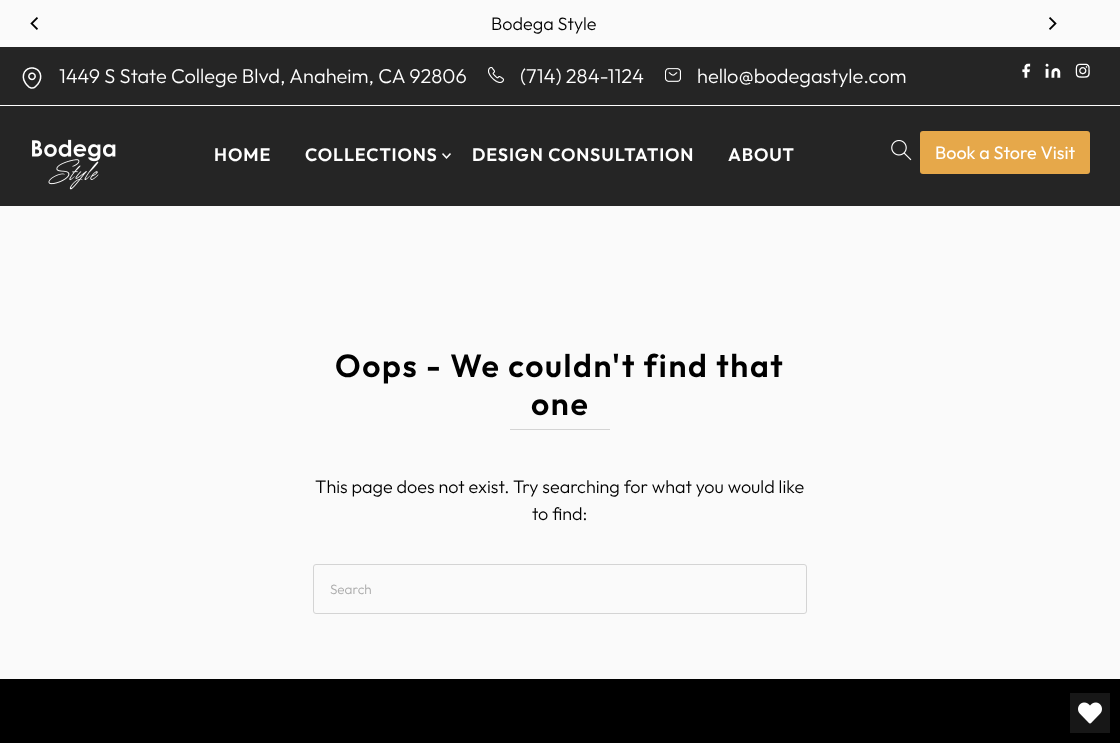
<svg xmlns="http://www.w3.org/2000/svg" width="1120" height="743" viewBox="0 0 1120 743">
  <rect width="100%" height="100%" fill="#fafafa"/>
  <image x="30" y="17" width="8" height="13" href="img1.png"/>
  <text x="491" y="30" font-family="Outfit" font-size="18" font-weight="300" fill="#000000">Bodega Style</text>
  <image x="1049" y="17" width="8" height="13" href="img2.png"/>
  <rect x="0" y="47" width="1120" height="58" fill="#252525"/>
  <rect x="0" y="105" width="1120" height="1" fill="#ffffff"/>
  <image x="22" y="67" width="20" height="22" href="img3.png"/>
  <text x="59" y="83" font-family="Outfit" font-size="20" font-weight="300" fill="#ffffff">1449 S State College Blvd, Anaheim, CA 92806</text>
  <image x="488" y="67" width="16" height="16" href="img4.png"/>
  <text x="520" y="83" font-family="Outfit" font-size="20" font-weight="300" fill="#ffffff">(714) 284-1124</text>
  <image x="665" y="68" width="16" height="14" href="img5.png"/>
  <text x="697" y="83" font-family="Outfit" font-size="20" font-weight="300" fill="#ffffff">hello@bodegastyle.com</text>
  <image x="1022" y="63" width="9" height="15" href="img6.png"/>
  <image x="1045" y="63" width="16" height="15" href="img7.png"/>
  <image x="1075" y="63" width="15" height="15" href="img8.png"/>
  <rect x="0" y="106" width="1120" height="100" fill="#252525"/>
  <image x="32" y="139" width="84" height="51" href="img9.png"/>
  <text x="214" y="161" font-family="Outfit" font-size="18" font-weight="600" letter-spacing="0.9" fill="#ffffff">HOME</text>
  <text x="305" y="161" font-family="Outfit" font-size="18" font-weight="600" letter-spacing="0.9" fill="#ffffff">COLLECTIONS</text>
  <image x="442" y="153" width="9" height="6" href="img10.png"/>
  <text x="472" y="161" font-family="Outfit" font-size="18" font-weight="600" letter-spacing="0.9" fill="#ffffff">DESIGN CONSULTATION</text>
  <text x="728" y="161" font-family="Outfit" font-size="18" font-weight="600" letter-spacing="0.9" fill="#ffffff">ABOUT</text>
  <image x="891" y="140" width="21" height="21" href="img11.png"/>
  <rect x="920" y="131" width="170" height="43" rx="3" fill="#e6a84a"/>
  <text x="935" y="159" font-family="Outfit" font-size="18" fill="#ffffff">Book a Store Visit</text>
  <text x="335" y="377" font-family="Outfit" font-size="32" font-weight="600" letter-spacing="1.6" fill="#000000">Oops - We couldn't find that</text>
  <text x="531" y="415" font-family="Outfit" font-size="32" font-weight="600" letter-spacing="1.6" fill="#000000">one</text>
  <rect x="510" y="429" width="100" height="1" fill="#d4d4d4"/>
  <text x="315" y="493" font-family="Outfit" font-size="18" font-weight="300" fill="#000000">This page does not exist. Try searching for what you would like</text>
  <text x="532" y="520" font-family="Outfit" font-size="18" font-weight="300" fill="#000000">to find:</text>
  <rect x="313.5" y="564.5" width="493" height="49" rx="2.5" fill="none" stroke="#d4d4d4"/>
  <text x="330" y="594" font-family="Outfit" font-size="13.5" font-weight="300" fill="#aaaaaa">Search</text>
  <rect x="0" y="679" width="1120" height="64" fill="#000000"/>
  <rect x="1070" y="693" width="40" height="40" fill="#171717"/>
  <image x="1078" y="702" width="24" height="22" href="img12.png"/>
</svg>
